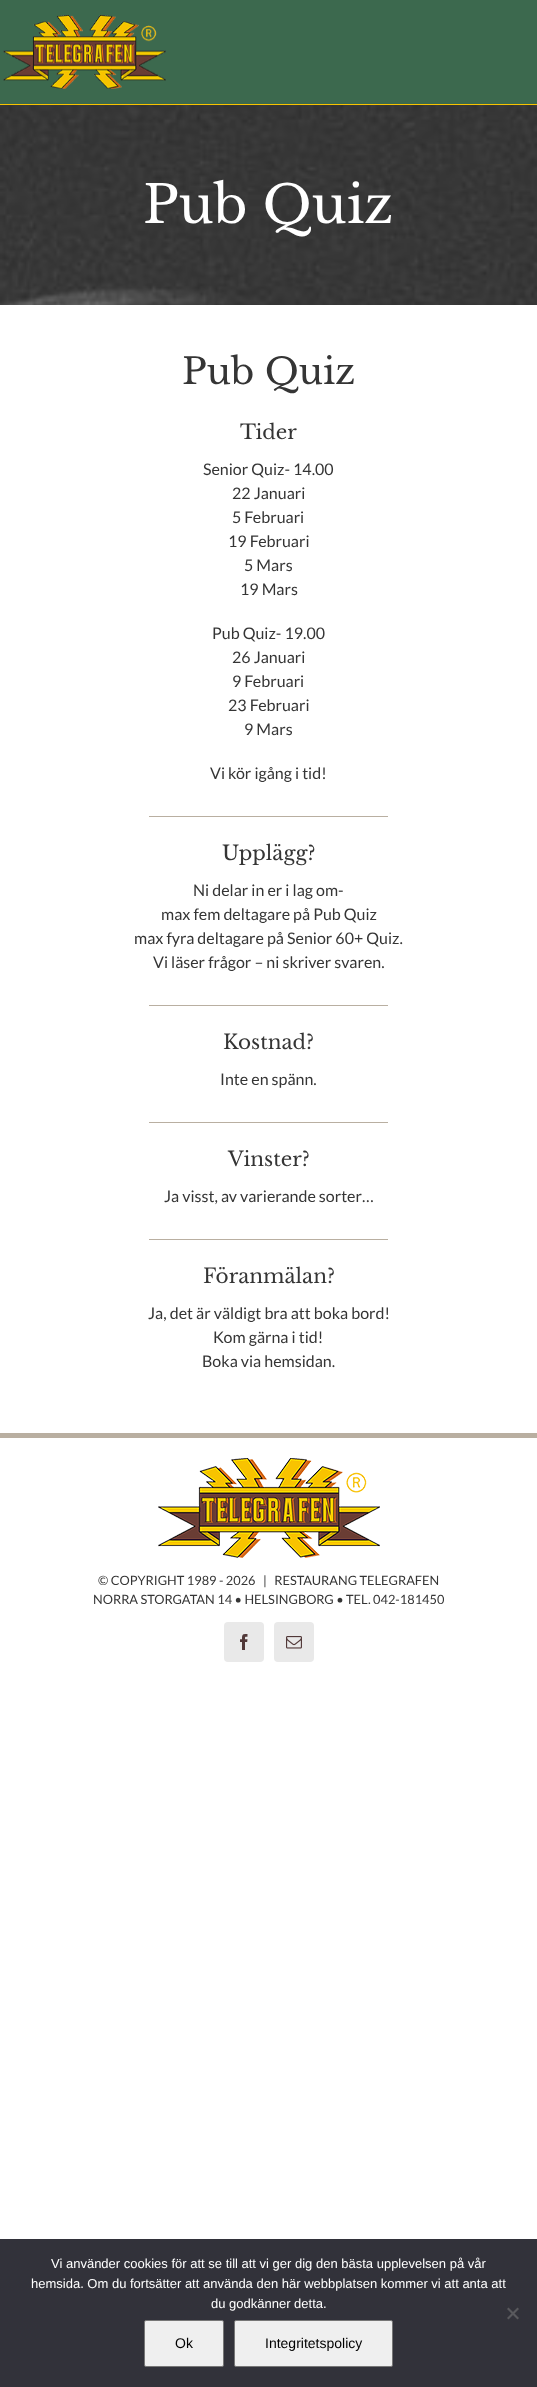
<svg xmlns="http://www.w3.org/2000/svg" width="537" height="2387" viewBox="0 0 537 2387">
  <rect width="100%" height="100%" fill="#ffffff"/>
  <rect x="0" y="0" width="537" height="104" fill="#3c694e"/>
  <rect x="0" y="104" width="537" height="1" fill="#f8c300"/>
  <image x="3" y="15" width="163" height="74" href="img1.png"/>
  <image x="0" y="105" width="537" height="200" href="img2.png"/>
  <text x="143" y="223" font-family="Libre Baskerville" font-size="52" fill="#ffffff">Pub Quiz</text>
  <text x="182" y="384" font-family="Libre Baskerville" font-size="36" fill="#353535">Pub Quiz</text>
  <text x="240" y="439" font-family="Libre Baskerville" font-size="20" fill="#353535">Tider</text>
  <text x="203" y="475" font-family="Lato" font-size="16" fill="#353535">Senior Quiz- 14.00</text>
  <text x="232" y="499" font-family="Lato" font-size="16" fill="#353535">22 Januari</text>
  <text x="232" y="523" font-family="Lato" font-size="16" fill="#353535">5 Februari</text>
  <text x="228" y="547" font-family="Lato" font-size="16" fill="#353535">19 Februari</text>
  <text x="244" y="571" font-family="Lato" font-size="16" fill="#353535">5 Mars</text>
  <text x="240" y="595" font-family="Lato" font-size="16" fill="#353535">19 Mars</text>
  <text x="212" y="639" font-family="Lato" font-size="16" fill="#353535">Pub Quiz- 19.00</text>
  <text x="232" y="663" font-family="Lato" font-size="16" fill="#353535">26 Januari</text>
  <text x="232" y="687" font-family="Lato" font-size="16" fill="#353535">9 Februari</text>
  <text x="228" y="711" font-family="Lato" font-size="16" fill="#353535">23 Februari</text>
  <text x="244" y="735" font-family="Lato" font-size="16" fill="#353535">9 Mars</text>
  <text x="210" y="779" font-family="Lato" font-size="16" fill="#353535">Vi kör igång i tid!</text>
  <rect x="149" y="816" width="239" height="1" fill="#b9afa1"/>
  <text x="222" y="860" font-family="Libre Baskerville" font-size="20" fill="#353535">Upplägg?</text>
  <text x="193" y="896" font-family="Lato" font-size="16" fill="#353535">Ni delar in er i lag om-</text>
  <text x="161" y="920" font-family="Lato" font-size="16" fill="#353535">max fem deltagare på Pub Quiz</text>
  <text x="134" y="944" font-family="Lato" font-size="16" fill="#353535">max fyra deltagare på Senior 60+ Quiz.</text>
  <text x="153" y="968" font-family="Lato" font-size="16" fill="#353535">Vi läser frågor – ni skriver svaren.</text>
  <rect x="149" y="1005" width="239" height="1" fill="#b9afa1"/>
  <text x="223" y="1049" font-family="Libre Baskerville" font-size="20" fill="#353535">Kostnad?</text>
  <text x="220" y="1085" font-family="Lato" font-size="16" fill="#353535">Inte en spänn.</text>
  <rect x="149" y="1122" width="239" height="1" fill="#b9afa1"/>
  <text x="228" y="1166" font-family="Libre Baskerville" font-size="20" fill="#353535">Vinster?</text>
  <text x="164" y="1202" font-family="Lato" font-size="16" fill="#353535">Ja visst, av varierande sorter…</text>
  <rect x="149" y="1239" width="239" height="1" fill="#b9afa1"/>
  <text x="203" y="1283" font-family="Libre Baskerville" font-size="20" fill="#353535">Föranmälan?</text>
  <text x="148" y="1319" font-family="Lato" font-size="16" fill="#353535">Ja, det är väldigt bra att boka bord!</text>
  <text x="213" y="1343" font-family="Lato" font-size="16" fill="#353535">Kom gärna i tid!</text>
  <text x="202" y="1367" font-family="Lato" font-size="16" fill="#353535">Boka via hemsidan.</text>
  <rect x="0" y="1433" width="537" height="5" fill="#b9afa1"/>
  <image x="158" y="1458" width="222" height="100" href="img3.png"/>
  <text x="98" y="1585" font-family="Lato" font-size="12.8" fill="#353535" xml:space="preserve">© COPYRIGHT 1989 - 2026   |   RESTAURANG TELEGRAFEN</text>
  <text x="93" y="1604" font-family="Lato" font-size="12.8" fill="#353535">NORRA STORGATAN 14 • HELSINGBORG •</text>
  <text x="346" y="1604" font-family="Lato" font-size="12.8" fill="#353535">TEL. 042-181450</text>
  <rect x="224" y="1622" width="40" height="40" rx="4" fill="#e9e9e9"/>
  <image x="240" y="1634" width="8" height="16" href="img4.png"/>
  <rect x="274" y="1622" width="40" height="40" rx="4" fill="#e9e9e9"/>
  <image x="286" y="1636" width="16" height="13" href="img5.png"/>
  <rect x="0" y="2239" width="537" height="148" fill="#32323a"/>
  <text x="51" y="2268" font-family="Liberation Sans" font-size="13" fill="#ffffff">Vi använder cookies för att se till att vi ger dig den bästa upplevelsen på vår</text>
  <text x="31" y="2288" font-family="Liberation Sans" font-size="13" fill="#ffffff">hemsida. Om du fortsätter att använda den här webbplatsen kommer vi att anta att</text>
  <text x="211" y="2308" font-family="Liberation Sans" font-size="13" fill="#ffffff">du godkänner detta.</text>
  <path d="M517.5 2307.5L519 2309L508.5 2319.5L507 2318Z" fill="#59595d"/>
  <path d="M507 2309L508.5 2307.5L519 2318L517.5 2319.5Z" fill="#59595d"/>
  <rect x="144.5" y="2320.5" width="79" height="46" rx="1.5" fill="#efefef" stroke="#767676"/>
  <text x="175" y="2348" font-family="Liberation Sans" font-size="14" fill="#000000">Ok</text>
  <rect x="234.5" y="2320.5" width="158" height="46" rx="1.5" fill="#efefef" stroke="#767676"/>
  <text x="265" y="2348" font-family="Liberation Sans" font-size="14" fill="#000000">Integritetspolicy</text>
</svg>
